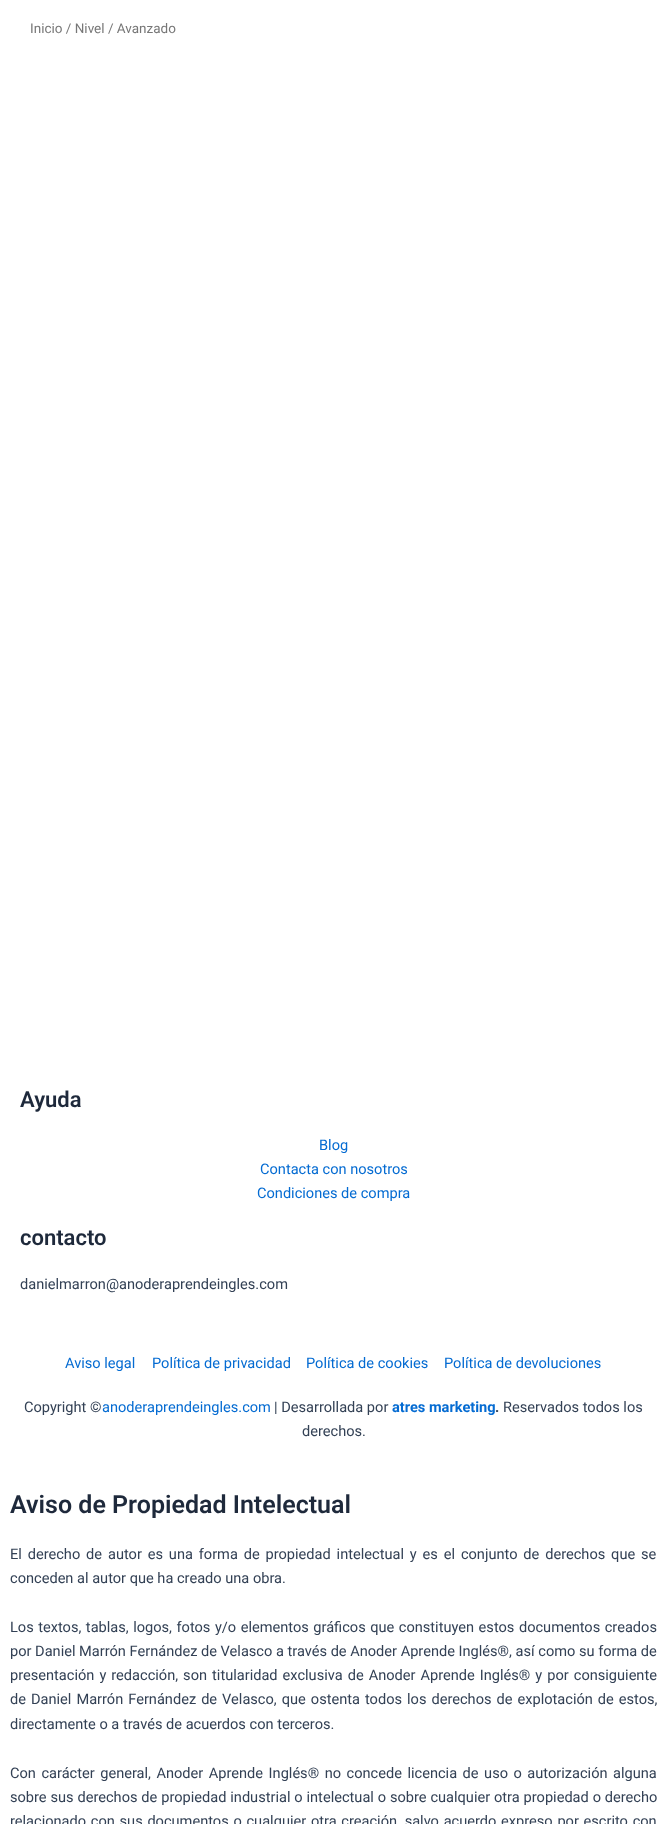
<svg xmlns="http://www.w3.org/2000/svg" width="667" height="1824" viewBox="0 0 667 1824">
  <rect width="100%" height="100%" fill="#ffffff"/>
  <text x="30" y="33" font-family="Roboto" font-size="13.5" fill="#777777">Inicio / Nivel / Avanzado</text>
  <text x="20" y="1107" font-family="Roboto" font-size="22" font-weight="600" fill="#1e293b">Ayuda</text>
  <text x="319" y="1150" font-family="Roboto" font-size="14.6" fill="#046bd2">Blog</text>
  <text x="260" y="1174" font-family="Roboto" font-size="14.6" fill="#046bd2">Contacta con nosotros</text>
  <text x="257" y="1198" font-family="Roboto" font-size="14.6" fill="#046bd2">Condiciones de compra</text>
  <text x="20" y="1245" font-family="Roboto" font-size="22" font-weight="600" fill="#1e293b">contacto</text>
  <text x="20" y="1289" font-family="Roboto" font-size="14.6" fill="#334155">danielmarron@anoderaprendeingles.com</text>
  <text x="65" y="1368" font-family="Roboto" font-size="14.6" fill="#046bd2">Aviso legal</text>
  <text x="152" y="1368" font-family="Roboto" font-size="14.6" fill="#046bd2">Política de privacidad</text>
  <text x="306" y="1368" font-family="Roboto" font-size="14.6" fill="#046bd2">Política de cookies</text>
  <text x="444" y="1368" font-family="Roboto" font-size="14.6" fill="#046bd2">Política de devoluciones</text>
  <text x="24" y="1412" font-family="Roboto" font-size="14.6" fill="#334155">Copyright ©</text>
  <text x="102" y="1412" font-family="Roboto" font-size="14.6" fill="#046bd2">anoderaprendeingles.com</text>
  <text x="274" y="1412" font-family="Roboto" font-size="14.6" fill="#334155">| Desarrollada por</text>
  <text x="392" y="1412" font-family="Roboto" font-size="14.6" font-weight="bold" fill="#046bd2">atres marketing</text>
  <text x="495" y="1412" font-family="Roboto" font-size="14.6" font-weight="bold" fill="#334155">.</text>
  <text x="503" y="1412" font-family="Roboto" font-size="14.6" fill="#334155">Reservados todos los</text>
  <text x="302" y="1436" font-family="Roboto" font-size="14.6" fill="#334155">derechos.</text>
  <text x="10" y="1513" font-family="Roboto" font-size="25" font-weight="600" fill="#1e293b">Aviso de Propiedad Intelectual</text>
  <text x="10" y="1559" word-spacing="2.25" font-family="Roboto" font-size="14.6" fill="#334155">El derecho de autor es una forma de propiedad intelectual y es el conjunto de derechos que se</text>
  <text x="10" y="1583" font-family="Roboto" font-size="14.6" fill="#334155">conceden al autor que ha creado una obra.</text>
  <text x="10" y="1632" word-spacing="0.9" font-family="Roboto" font-size="14.6" fill="#334155">Los textos, tablas, logos, fotos y/o elementos gráficos que constituyen estos documentos creados</text>
  <text x="10" y="1656" font-family="Roboto" font-size="14.6" fill="#334155">por Daniel Marrón Fernández de Velasco a través de Anoder Aprende Inglés®, así como su forma de</text>
  <text x="10" y="1680" word-spacing="1.4" font-family="Roboto" font-size="14.6" fill="#334155">presentación y redacción, son titularidad exclusiva de Anoder Aprende Inglés® y por consiguiente</text>
  <text x="10" y="1704" word-spacing="1.4" font-family="Roboto" font-size="14.6" fill="#334155">de Daniel Marrón Fernández de Velasco, que ostenta todos los derechos de explotación de estos,</text>
  <text x="10" y="1729" font-family="Roboto" font-size="14.6" fill="#334155">directamente o a través de acuerdos con terceros.</text>
  <text x="10" y="1778" word-spacing="1.9" font-family="Roboto" font-size="14.6" fill="#334155">Con carácter general, Anoder Aprende Inglés® no concede licencia de uso o autorización alguna</text>
  <text x="10" y="1802" word-spacing="0.25" font-family="Roboto" font-size="14.6" fill="#334155">sobre sus derechos de propiedad industrial o intelectual o sobre cualquier otra propiedad o derecho</text>
  <text x="10" y="1826" word-spacing="1.1" font-family="Roboto" font-size="14.6" fill="#334155">relacionado con sus documentos o cualquier otra creación, salvo acuerdo expreso por escrito con</text>
</svg>
